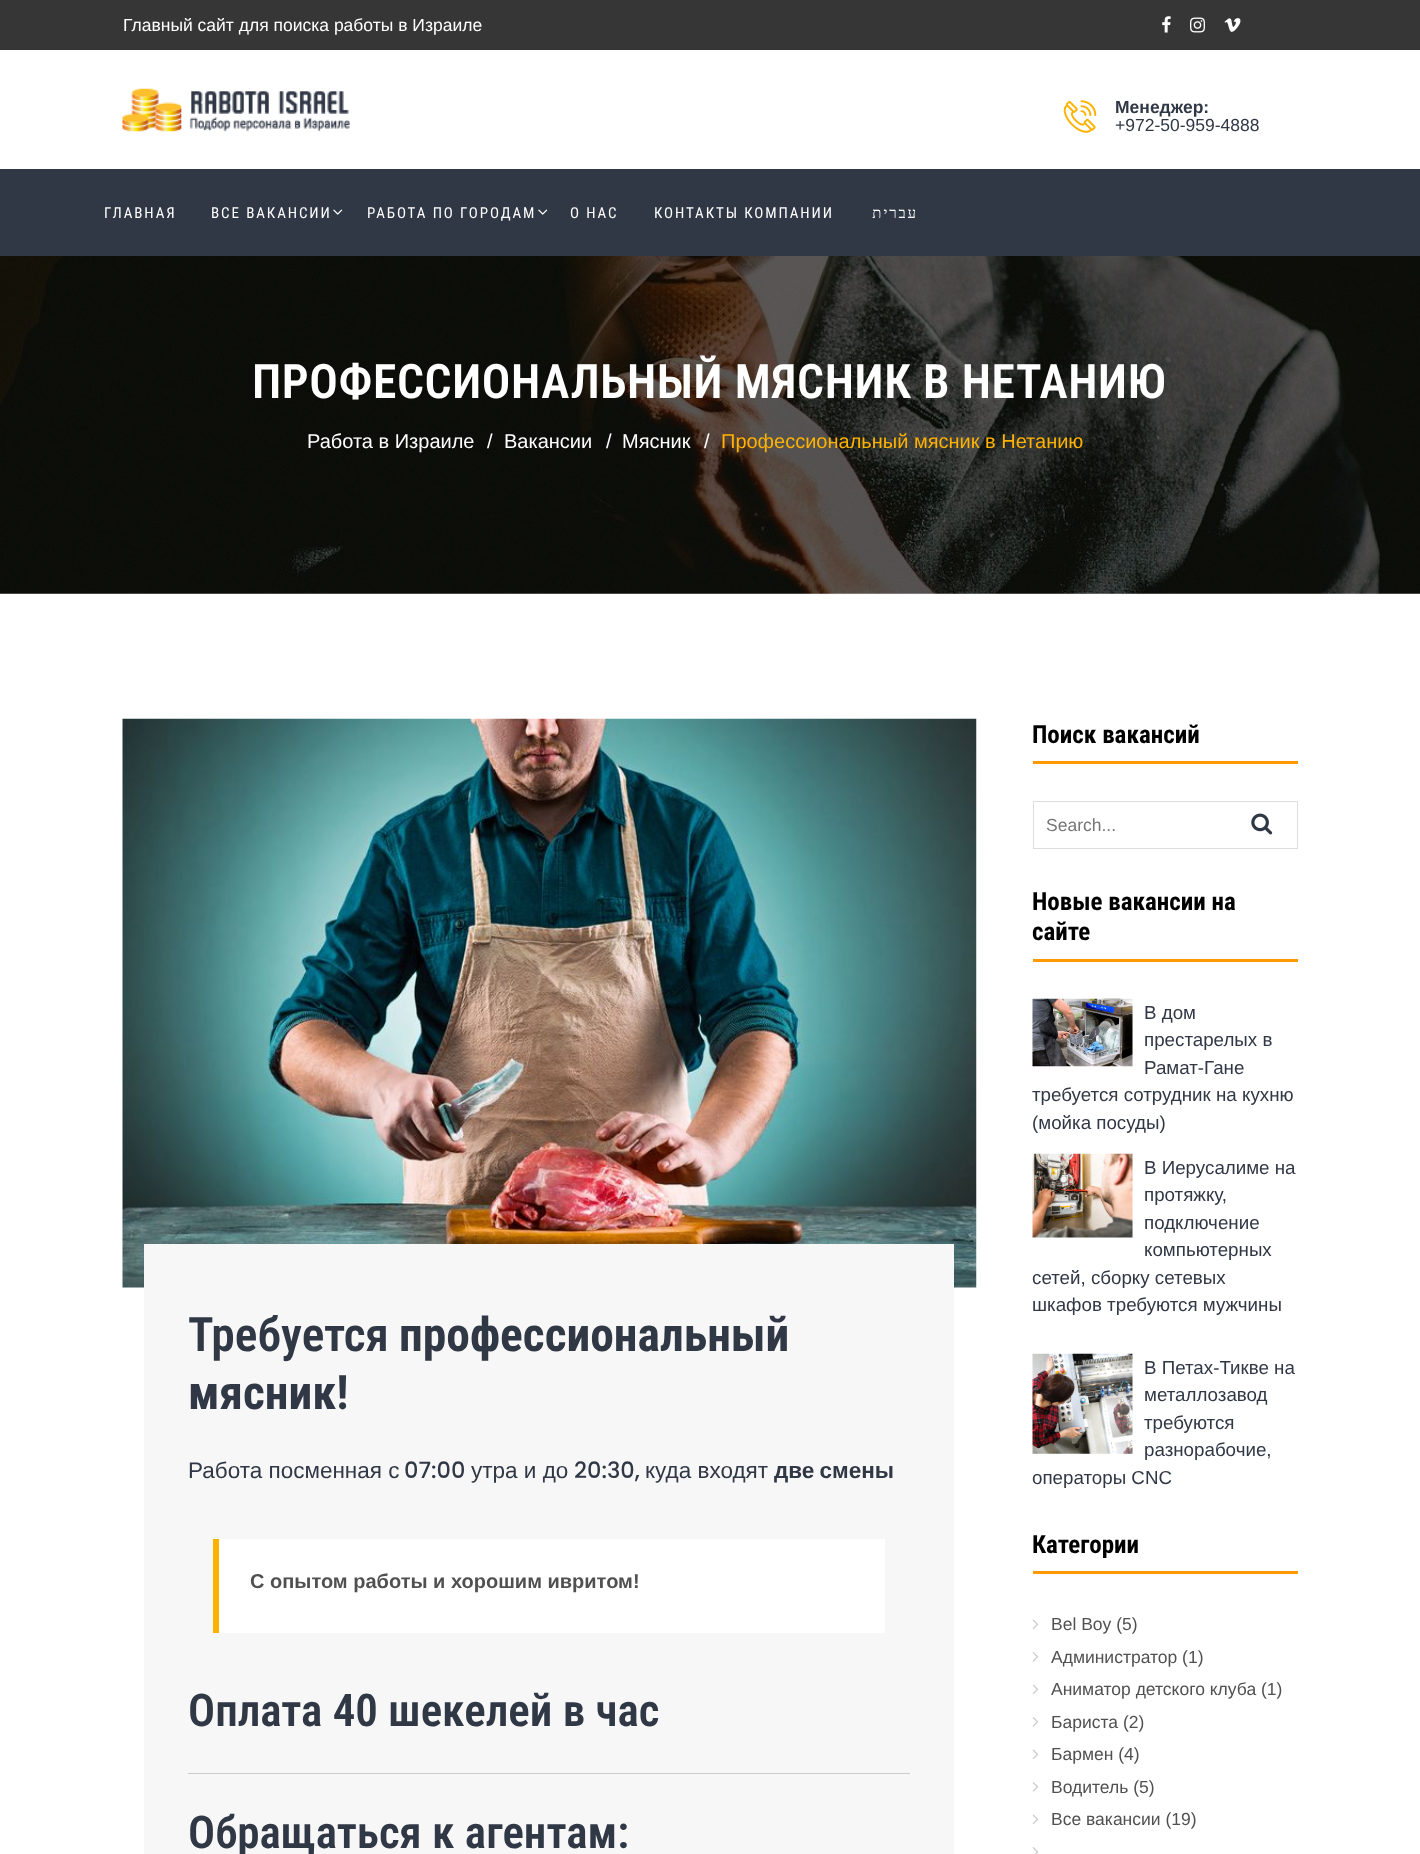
<svg xmlns="http://www.w3.org/2000/svg" width="1420" height="1854" viewBox="0 0 1420 1854">
  <rect width="100%" height="100%" fill="#ffffff"/>
  <rect x="0" y="0" width="1420" height="50" fill="#363636"/>
  <text x="123" y="31" font-family="Liberation Sans" font-size="17.5" fill="#ffffff">Главный сайт для поиска работы в Израиле</text>
  <image x="1162" y="16" width="9" height="17" href="img1.png"/>
  <image x="1190" y="17" width="15" height="16" href="img2.png"/>
  <image x="1224" y="18" width="17" height="14" href="img3.png"/>
  <image x="122" y="88" width="228" height="44" href="img4.png"/>
  <image x="1063" y="100" width="34" height="33" href="img5.png"/>
  <text x="1115" y="113" font-family="Liberation Sans" font-size="17.5" font-weight="bold" fill="#303745">Менеджер:</text>
  <text x="1115" y="131" font-family="Liberation Sans" font-size="17.5" fill="#303745">+972-50-959-4888</text>
  <rect x="0" y="169" width="1420" height="87" fill="#303745"/>
  <text x="104" y="218" font-family="Roboto Condensed" font-size="15" letter-spacing="1.9" fill="#ffffff">ГЛАВНАЯ</text>
  <text x="211" y="218" font-family="Roboto Condensed" font-size="15" letter-spacing="1.9" fill="#ffffff">ВСЕ ВАКАНСИИ</text>
  <image x="333" y="209" width="10" height="6" href="img6.png"/>
  <text x="367" y="218" font-family="Roboto Condensed" font-size="15" letter-spacing="1.9" fill="#ffffff">РАБОТА ПО ГОРОДАМ</text>
  <image x="538" y="209" width="10" height="6" href="img6.png"/>
  <text x="570" y="218" font-family="Roboto Condensed" font-size="15" letter-spacing="1.9" fill="#ffffff">О НАС</text>
  <text x="654" y="218" font-family="Roboto Condensed" font-size="15" letter-spacing="1.9" fill="#ffffff">КОНТАКТЫ КОМПАНИИ</text>
  <text x="918" y="218" font-family="Liberation Serif" font-size="15" letter-spacing="1.9" direction="rtl" fill="#ffffff">עברית</text>
  <image x="0" y="256" width="1420" height="338" href="img7.png"/>
  <text x="252" y="398" font-family="Roboto Condensed" font-size="47.5" font-weight="600" letter-spacing="0.6" fill="#ffffff">ПРОФЕССИОНАЛЬНЫЙ МЯСНИК В НЕТАНИЮ</text>
  <text x="307" y="448" font-family="Liberation Sans" font-size="20" fill="#ffffff">Работа в Израиле</text>
  <text x="487" y="448" font-family="Liberation Sans" font-size="20" fill="#ffffff">/</text>
  <text x="504" y="448" font-family="Liberation Sans" font-size="20" fill="#ffffff">Вакансии</text>
  <text x="606" y="448" font-family="Liberation Sans" font-size="20" fill="#ffffff">/</text>
  <text x="622" y="448" font-family="Liberation Sans" font-size="20" fill="#ffffff">Мясник</text>
  <text x="704" y="448" font-family="Liberation Sans" font-size="20" fill="#ffffff">/</text>
  <text x="721" y="448" font-family="Liberation Sans" font-size="20" fill="#ffb300">Профессиональный мясник в Нетанию</text>
  <image x="122" y="718" width="855" height="570" href="img8.png"/>
  <rect x="144" y="1244" width="810" height="610" fill="#f7f7f7"/>
  <text x="188" y="1351" font-family="Roboto Condensed" font-size="47.5" font-weight="600" fill="#303745">Требуется</text>
  <text x="399" y="1351" font-family="Roboto Condensed" font-size="47.5" font-weight="bold" fill="#303745">профессиональный</text>
  <text x="188" y="1409" font-family="Roboto Condensed" font-size="47.5" font-weight="bold" fill="#303745">мясник!</text>
  <text x="188" y="1478" font-family="Liberation Sans" font-size="22.5" fill="#303745">Работа посменная с</text>
  <text x="404" y="1478" font-family="Poppins" font-size="22.5" font-weight="500" fill="#303745">07:00</text>
  <text x="471" y="1478" font-family="Liberation Sans" font-size="22.5" fill="#303745">утра и до</text>
  <text x="574" y="1478" font-family="Poppins" font-size="22.5" font-weight="500" fill="#303745">20:30,</text>
  <text x="645" y="1478" font-family="Liberation Sans" font-size="22.5" fill="#303745">куда входят</text>
  <text x="774" y="1478" word-spacing="-1" font-family="Liberation Sans" font-size="22.5" font-weight="bold" fill="#303745">две смены</text>
  <rect x="219" y="1539" width="666" height="94" fill="#ffffff"/>
  <rect x="213" y="1539" width="6" height="94" fill="#ffb300"/>
  <text x="250" y="1588" font-family="Liberation Sans" font-size="20" font-weight="bold" fill="#505050">С опытом работы и хорошим ивритом!</text>
  <text x="188" y="1726" font-family="Roboto Condensed" font-size="45" font-weight="600" fill="#303745">Оплата 40 шекелей в час</text>
  <rect x="188" y="1773" width="722" height="1" fill="#cccccc"/>
  <text x="188" y="1848" font-family="Roboto Condensed" font-size="45" font-weight="600" fill="#303745">Обращаться к агентам:</text>
  <rect x="1033" y="761" width="265" height="3" fill="#ff9b00"/>
  <text x="1032" y="743" font-family="Roboto Condensed" font-size="25" font-weight="bold" fill="#000000">Поиск вакансий</text>
  <rect x="1033.5" y="801.5" width="264" height="47" fill="none" stroke="#dddddd"/>
  <text x="1046" y="831" font-family="Liberation Sans" font-size="17.5" fill="#757575">Search...</text>
  <image x="1251" y="813" width="22" height="22" href="img9.png"/>
  <rect x="1033" y="959" width="265" height="3" fill="#ff9b00"/>
  <text x="1032" y="910" font-family="Roboto Condensed" font-size="25" font-weight="bold" fill="#000000">Новые вакансии на</text>
  <text x="1032" y="940" font-family="Roboto Condensed" font-size="25" font-weight="bold" fill="#000000">сайте</text>
  <image x="1032" y="998" width="101" height="69" href="img10.png"/>
  <text x="1144" y="1019" font-family="Liberation Sans" font-size="18.75" fill="#303745">В дом</text>
  <text x="1144" y="1046" font-family="Liberation Sans" font-size="18.75" fill="#303745">престарелых в</text>
  <text x="1144" y="1074" font-family="Liberation Sans" font-size="18.75" fill="#303745">Рамат-Гане</text>
  <text x="1032" y="1101" font-family="Liberation Sans" font-size="18.75" fill="#303745">требуется сотрудник на кухню</text>
  <text x="1032" y="1129" font-family="Liberation Sans" font-size="18.75" fill="#303745">(мойка посуды)</text>
  <image x="1032" y="1153" width="101" height="85" href="img11.png"/>
  <text x="1144" y="1174" font-family="Liberation Sans" font-size="18.75" fill="#303745">В Иерусалиме на</text>
  <text x="1144" y="1201" font-family="Liberation Sans" font-size="18.75" fill="#303745">протяжку,</text>
  <text x="1144" y="1229" font-family="Liberation Sans" font-size="18.75" fill="#303745">подключение</text>
  <text x="1144" y="1256" font-family="Liberation Sans" font-size="18.75" fill="#303745">компьютерных</text>
  <text x="1032" y="1284" font-family="Liberation Sans" font-size="18.75" fill="#303745">сетей, сборку сетевых</text>
  <text x="1032" y="1311" font-family="Liberation Sans" font-size="18.75" fill="#303745">шкафов требуются мужчины</text>
  <image x="1032" y="1353" width="101" height="101" href="img12.png"/>
  <text x="1144" y="1374" font-family="Liberation Sans" font-size="18.75" fill="#303745">В Петах-Тикве на</text>
  <text x="1144" y="1401" font-family="Liberation Sans" font-size="18.75" fill="#303745">металлозавод</text>
  <text x="1144" y="1429" font-family="Liberation Sans" font-size="18.75" fill="#303745">требуются</text>
  <text x="1144" y="1456" font-family="Liberation Sans" font-size="18.75" fill="#303745">разнорабочие,</text>
  <text x="1032" y="1484" font-family="Liberation Sans" font-size="18.75" fill="#303745">операторы CNC</text>
  <rect x="1033" y="1571" width="265" height="3" fill="#ff9b00"/>
  <text x="1032" y="1553" font-family="Roboto Condensed" font-size="25" font-weight="bold" fill="#000000">Категории</text>
  <image x="1032" y="1619" width="7" height="11" href="img13.png"/>
  <text x="1051" y="1630" font-family="Liberation Sans" font-size="17.5" fill="#505050">Bel Boy (5)</text>
  <image x="1032" y="1652" width="7" height="10" href="img14.png"/>
  <text x="1051" y="1663" font-family="Liberation Sans" font-size="17.5" fill="#505050">Администратор (1)</text>
  <image x="1032" y="1684" width="7" height="11" href="img13.png"/>
  <text x="1051" y="1695" font-family="Liberation Sans" font-size="17.5" fill="#505050">Аниматор детского клуба (1)</text>
  <image x="1032" y="1717" width="7" height="10" href="img14.png"/>
  <text x="1051" y="1728" font-family="Liberation Sans" font-size="17.5" fill="#505050">Бариста (2)</text>
  <image x="1032" y="1749" width="7" height="11" href="img13.png"/>
  <text x="1051" y="1760" font-family="Liberation Sans" font-size="17.5" fill="#505050">Бармен (4)</text>
  <image x="1032" y="1782" width="7" height="10" href="img14.png"/>
  <text x="1051" y="1793" font-family="Liberation Sans" font-size="17.5" fill="#505050">Водитель (5)</text>
  <image x="1032" y="1814" width="7" height="11" href="img13.png"/>
  <text x="1051" y="1825" font-family="Liberation Sans" font-size="17.5" fill="#505050">Все вакансии (19)</text>
  <image x="1032" y="1847" width="7" height="7" href="img15.png"/>
</svg>
